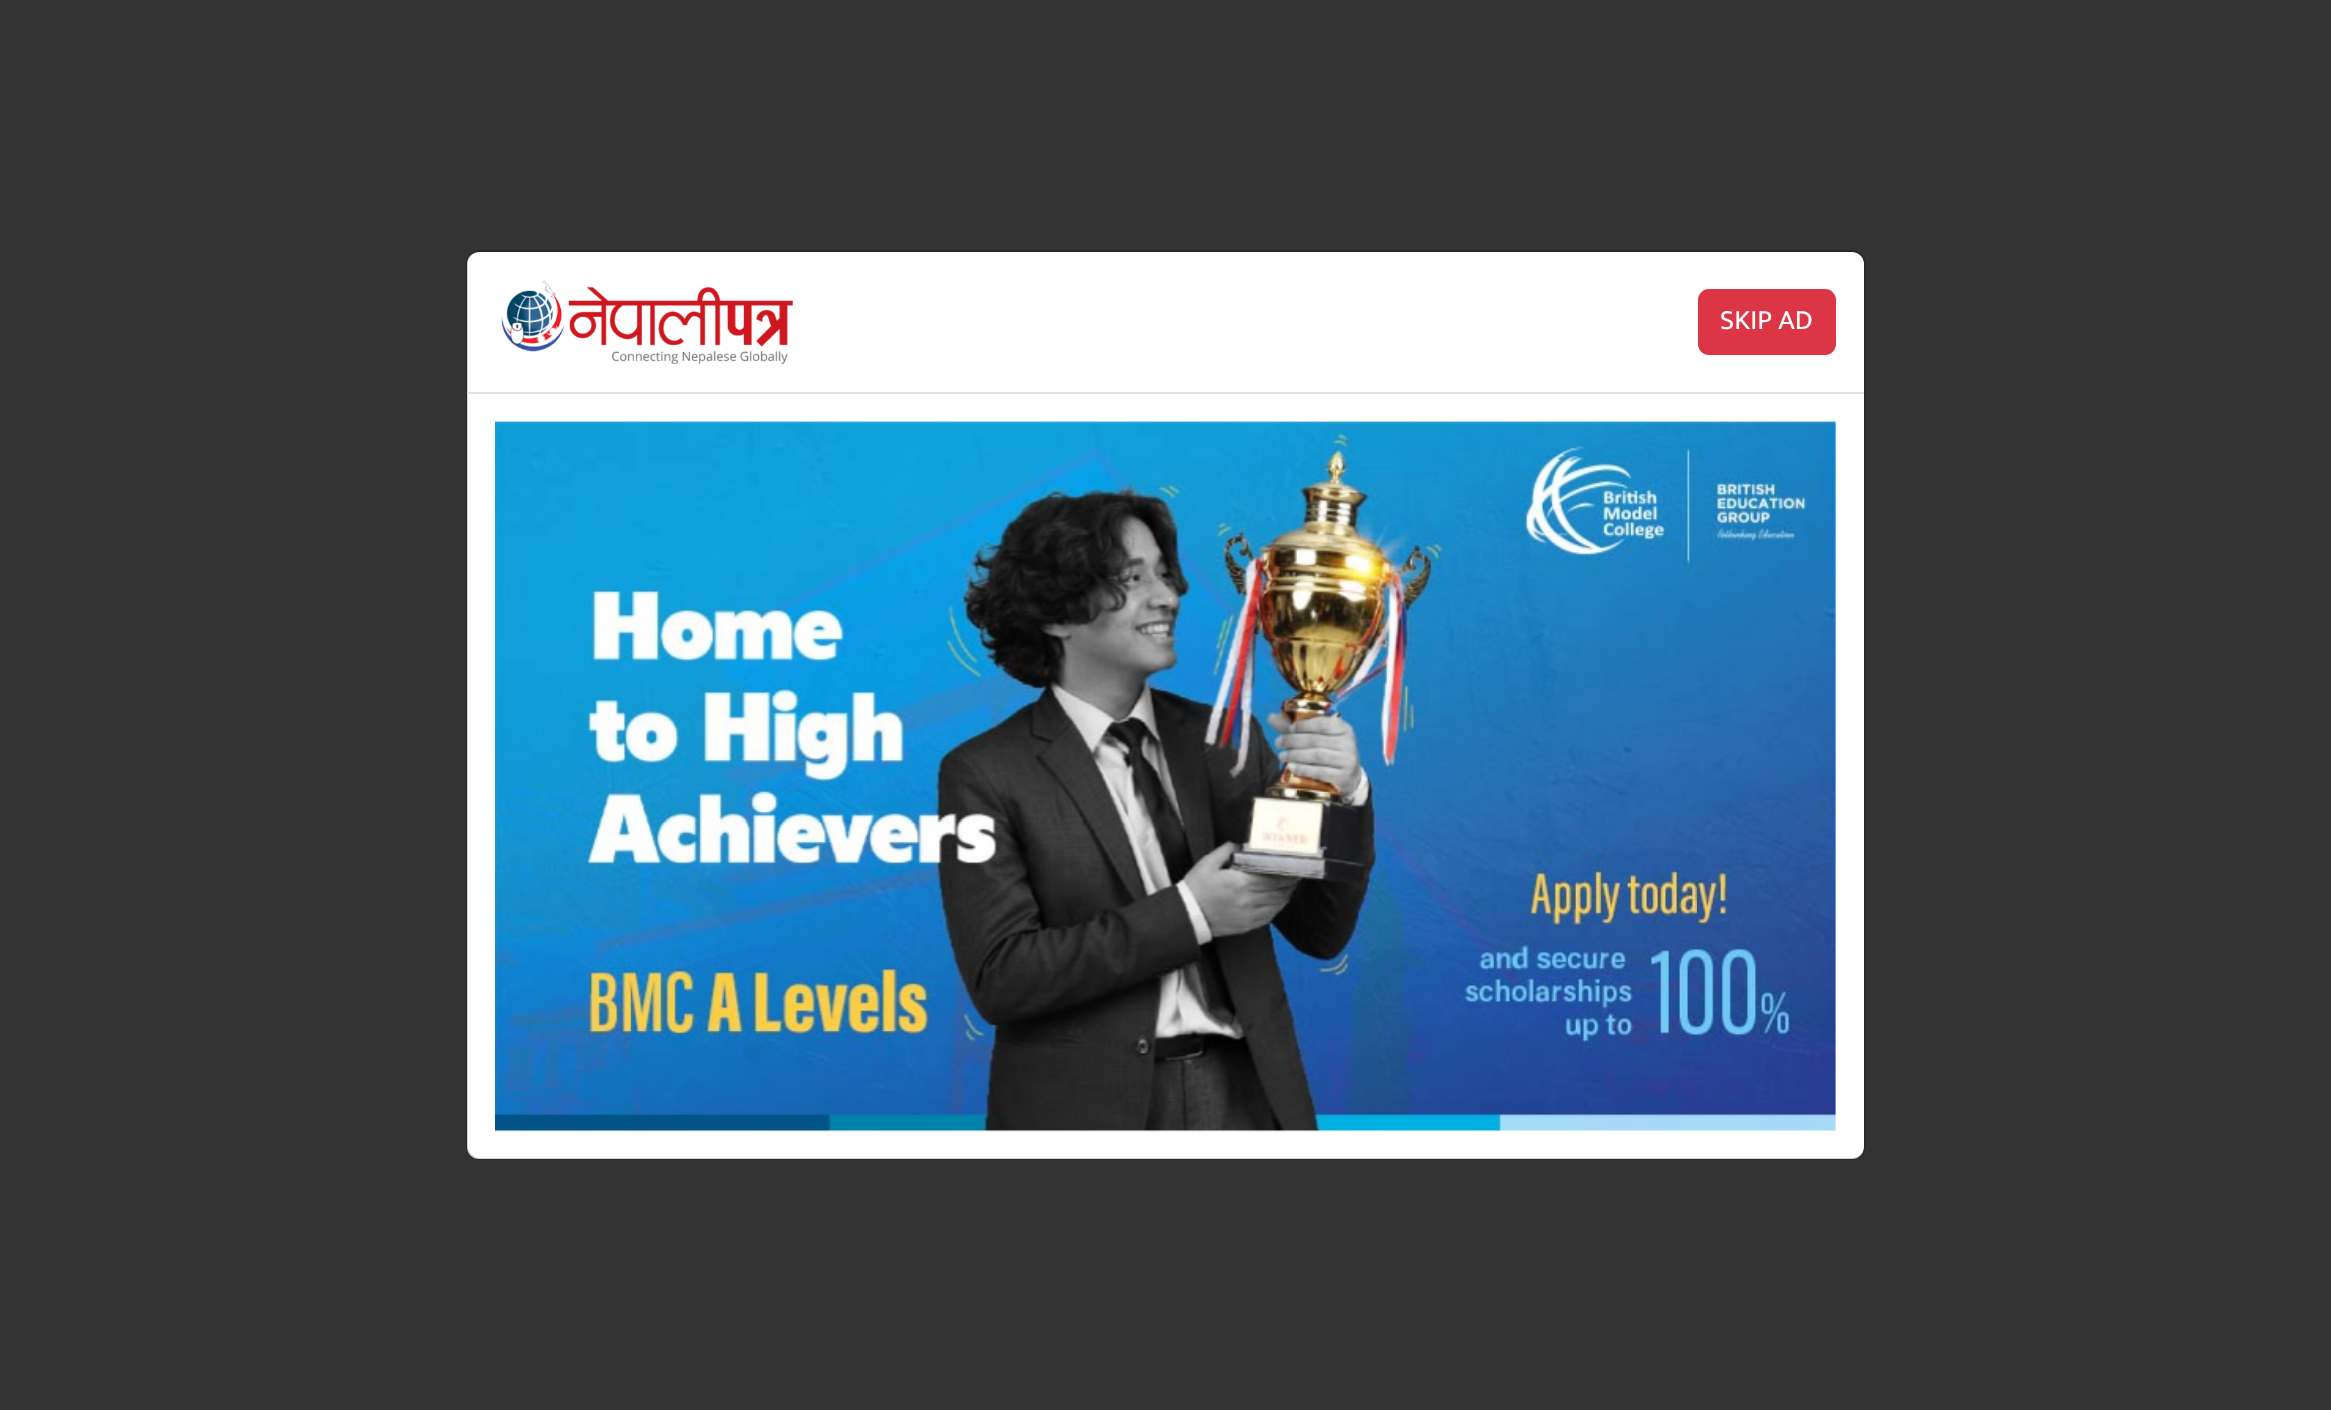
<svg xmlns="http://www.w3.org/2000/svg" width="2331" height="1410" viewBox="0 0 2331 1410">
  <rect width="100%" height="100%" fill="#333333"/>
  <rect x="467" y="252" width="1397" height="907" rx="12" fill="#ffffff"/>
  <rect x="467" y="251" width="1398" height="908" rx="13" fill="none" stroke="#000000" stroke-opacity="0.18" stroke-width="2"/>
  <rect x="467" y="392" width="1397" height="2" fill="#dee2e6"/>
  <image x="501" y="280" width="292" height="84" href="img1.png"/>
  <rect x="1699" y="290" width="136" height="64" rx="10" fill="#dc3545" stroke="#dc3545" stroke-width="2"/>
  <text x="1720" y="329" font-family="Mukta" font-size="28" fill="#ffffff">SKIP AD</text>
  <image x="495" y="421" width="1341" height="711" href="img2.png"/>
</svg>
